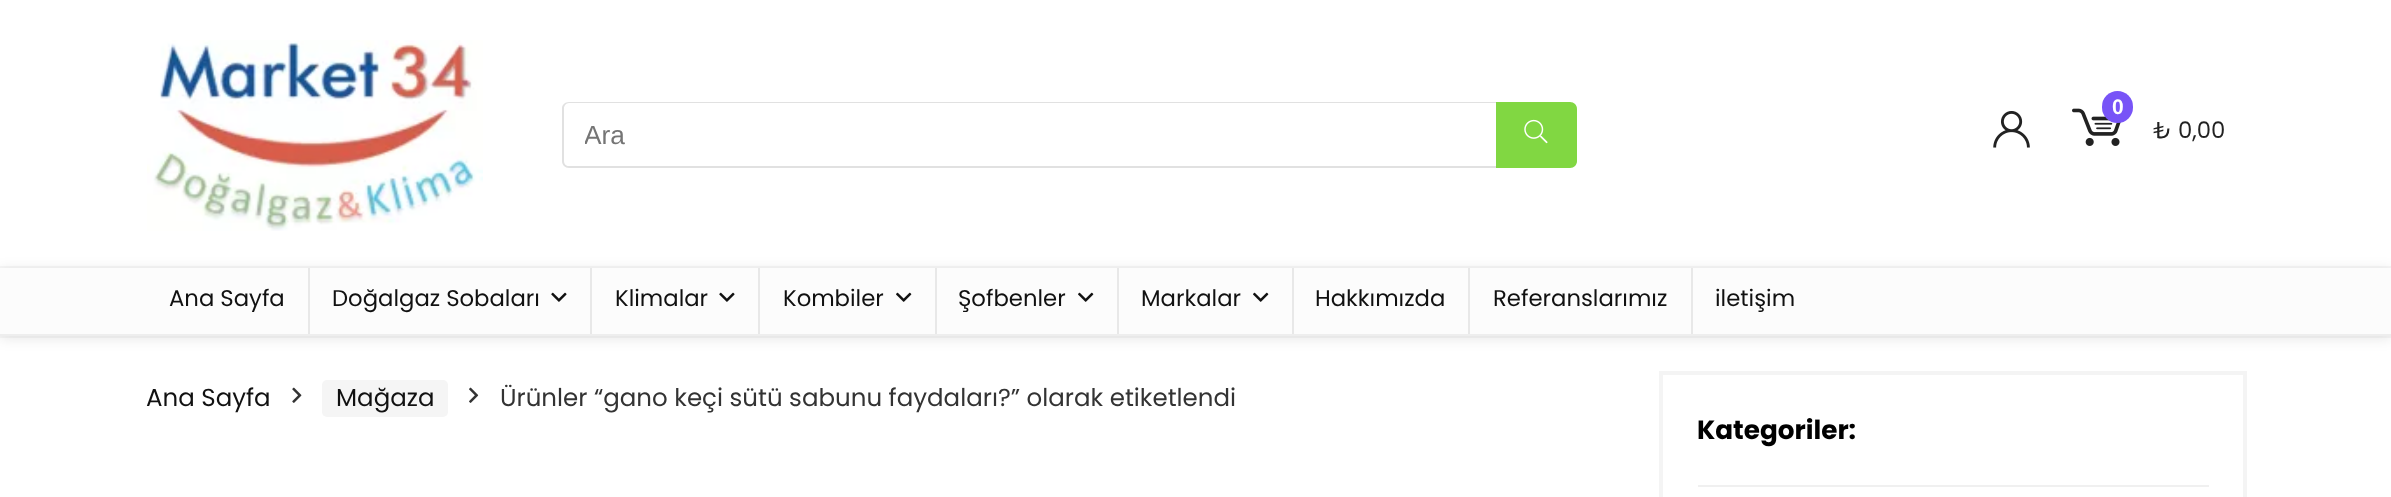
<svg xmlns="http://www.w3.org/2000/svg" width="2391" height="497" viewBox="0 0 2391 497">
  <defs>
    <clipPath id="clip1"><rect x="585" y="119" width="890" height="30"/></clipPath>
    <filter id="blur1" x="-50%" y="-200%" width="200%" height="500%"><feGaussianBlur stdDeviation="7"/></filter>
  </defs>
  <rect width="100%" height="100%" fill="#ffffff"/>
  <image x="147" y="40" width="336" height="191" href="img1.png"/>
  <path d="M569 102H1496V168H569C565 168 562 165 562 161V108C562 105 565 102 569 102ZM569 103H1496V166H569C566 166 564 164 564 161V108C564 106 566 103 569 103Z" fill="#e1e1e1" fill-rule="evenodd"/>
  <g clip-path="url(#clip1)">
    <text x="584" y="144" font-family="Liberation Sans" font-size="26.25" fill="#757575">Ara</text>
  </g>
  <path d="M1496 102H1570C1574 102 1577 105 1577 109V161C1577 165 1574 168 1570 168H1496Z" fill="#81d742"/>
  <image x="1524" y="119" width="24" height="25" href="img2.png"/>
  <image x="1993" y="111" width="37" height="37" href="img3.png"/>
  <image x="2072" y="108" width="49" height="38" href="img4.png"/>
  <rect x="2102" y="91" width="31" height="32" rx="15.5" fill="#7854f7"/>
  <text x="2112" y="114" font-family="Liberation Sans" font-size="21" font-weight="bold" fill="#ffffff">0</text>
  <text x="2153" y="138" font-family="Poppins" font-size="22.75" fill="#222222">₺ 0,00</text>
  <rect x="-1" y="267" width="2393" height="70" fill="none" stroke="#f7f7f7" stroke-width="2"/>
  <rect x="0" y="270" width="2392" height="68" fill="#000000" fill-opacity="0.1" filter="url(#blur1)"/>
  <rect x="0" y="268" width="2391" height="66" fill="#fcfcfc"/>
  <rect x="0" y="334" width="2391" height="2" fill="#eeeeee"/>
  <rect x="308" y="268" width="2" height="66" fill="#e8e8e8"/>
  <text x="169" y="306" font-family="Poppins" font-size="22.75" fill="#111111">Ana Sayfa</text>
  <rect x="590" y="268" width="2" height="66" fill="#e8e8e8"/>
  <text x="332" y="306" font-family="Poppins" font-size="22.75" fill="#111111">Doğalgaz Sobaları</text>
  <image x="551" y="292" width="16" height="10" href="img5.png"/>
  <rect x="758" y="268" width="2" height="66" fill="#e8e8e8"/>
  <text x="615" y="306" font-family="Poppins" font-size="22.75" fill="#111111">Klimalar</text>
  <image x="719" y="292" width="16" height="10" href="img5.png"/>
  <rect x="935" y="268" width="2" height="66" fill="#e8e8e8"/>
  <text x="783" y="306" font-family="Poppins" font-size="22.75" fill="#111111">Kombiler</text>
  <image x="896" y="292" width="16" height="10" href="img6.png"/>
  <rect x="1117" y="268" width="2" height="66" fill="#e8e8e8"/>
  <text x="958" y="306" font-family="Poppins" font-size="22.75" fill="#111111">Şofbenler</text>
  <image x="1078" y="292" width="16" height="10" href="img6.png"/>
  <rect x="1292" y="268" width="2" height="66" fill="#e8e8e8"/>
  <text x="1141" y="306" font-family="Poppins" font-size="22.75" fill="#111111">Markalar</text>
  <image x="1253" y="292" width="16" height="10" href="img6.png"/>
  <rect x="1468" y="268" width="2" height="66" fill="#e8e8e8"/>
  <text x="1315" y="306" font-family="Poppins" font-size="22.75" fill="#111111">Hakkımızda</text>
  <rect x="1691" y="268" width="2" height="66" fill="#e8e8e8"/>
  <text x="1493" y="306" font-family="Poppins" font-size="22.75" fill="#111111">Referanslarımız</text>
  <text x="1715" y="306" font-family="Poppins" font-size="22.75" fill="#111111">iletişim</text>
  <text x="146" y="406" font-family="Poppins" font-size="24.5" fill="#111111">Ana Sayfa</text>
  <image x="292" y="387" width="10" height="16" href="img7.png"/>
  <rect x="322" y="380" width="126" height="37" rx="5" fill="#f5f5f5"/>
  <text x="336" y="406" font-family="Poppins" font-size="24.5" fill="#111111">Mağaza</text>
  <image x="469" y="387" width="10" height="16" href="img8.png"/>
  <text x="500" y="406" font-family="Poppins" font-size="24.5" fill="#333333">Ürünler “gano keçi sütü sabunu faydaları?” olarak etiketlendi</text>
  <rect x="1661" y="373" width="584" height="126" fill="none" stroke="#f4f4f4" stroke-width="4"/>
  <rect x="1698" y="485" width="511" height="2" fill="#f0f0f0"/>
  <text x="1697" y="439" font-family="Poppins" font-size="26.25" font-weight="bold" fill="#000000">Kategoriler:</text>
</svg>
